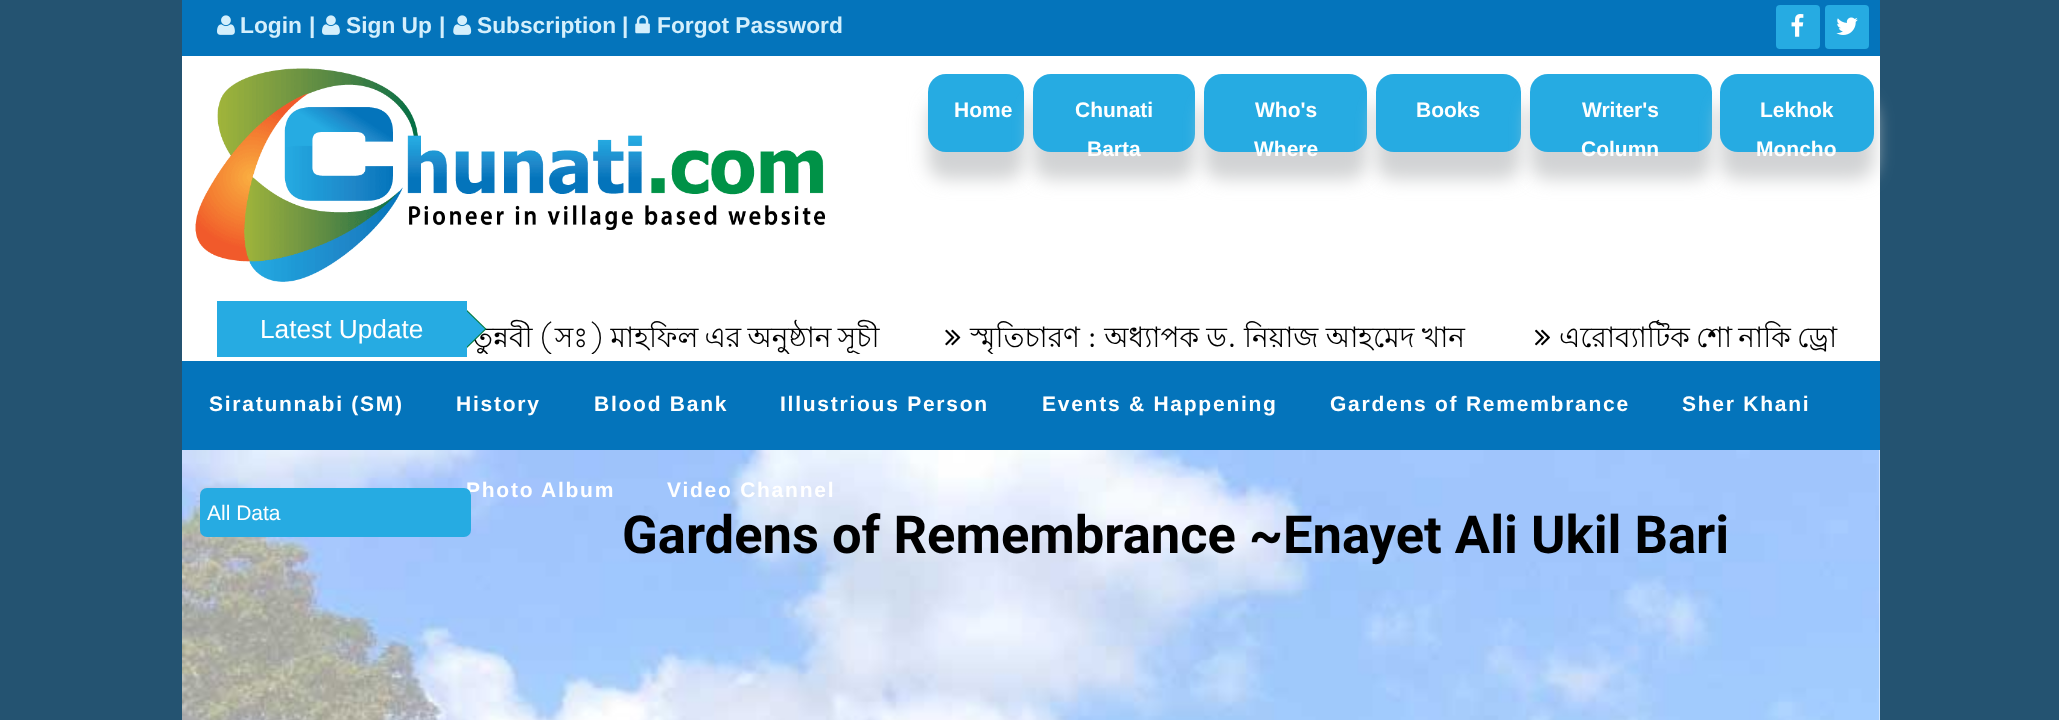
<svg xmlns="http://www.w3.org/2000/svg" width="2059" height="720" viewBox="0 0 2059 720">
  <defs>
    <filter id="blur1" x="-50%" y="-200%" width="200%" height="500%"><feGaussianBlur stdDeviation="9"/></filter>
    <clipPath id="clip1"><rect x="235" y="319" width="1610" height="35"/></clipPath>
  </defs>
  <rect width="100%" height="100%" fill="#245371"/>
  <rect x="182" y="56" width="1698" height="664" fill="#ffffff"/>
  <rect x="182" y="0" width="1698" height="56" fill="#0474bb"/>
  <image x="217" y="15" width="18" height="20" href="img1.png"/>
  <text x="240" y="33" font-family="Liberation Sans" font-size="22.75" font-weight="bold" fill="#d4effc">Login</text>
  <text x="309" y="33" font-family="Liberation Sans" font-size="22.75" font-weight="bold" fill="#d4effc">|</text>
  <image x="322" y="15" width="18" height="20" href="img2.png"/>
  <text x="346" y="33" font-family="Liberation Sans" font-size="22.75" font-weight="bold" fill="#d4effc">Sign Up</text>
  <text x="439" y="33" font-family="Liberation Sans" font-size="22.75" font-weight="bold" fill="#d4effc">|</text>
  <image x="453" y="15" width="19" height="20" href="img3.png"/>
  <text x="477" y="33" font-family="Liberation Sans" font-size="22.75" font-weight="bold" fill="#d4effc">Subscription</text>
  <text x="622" y="33" font-family="Liberation Sans" font-size="22.75" font-weight="bold" fill="#d4effc">|</text>
  <image x="635" y="15" width="15" height="19" href="img4.png"/>
  <text x="657" y="33" font-family="Liberation Sans" font-size="22.75" font-weight="bold" fill="#d4effc">Forgot Password</text>
  <rect x="1776" y="5" width="44" height="44" rx="4" fill="#26abe2"/>
  <image x="1791" y="14" width="13" height="23" href="img5.png"/>
  <rect x="1825" y="5" width="44" height="44" rx="4" fill="#26abe2"/>
  <image x="1836" y="17" width="22" height="18" href="img6.png"/>
  <image x="195" y="68" width="630" height="214" href="img7.png"/>
  <rect x="928" y="100" width="96" height="79" rx="18" fill="#d1d3d4" filter="url(#blur1)"/>
  <rect x="928" y="74" width="96" height="78" rx="18" fill="#26abe2"/>
  <text x="954" y="117" font-family="Liberation Sans" font-size="21" font-weight="bold" fill="#ffffff">Home</text>
  <rect x="1033" y="100" width="162" height="79" rx="18" fill="#d1d3d4" filter="url(#blur1)"/>
  <rect x="1033" y="74" width="162" height="78" rx="18" fill="#26abe2"/>
  <text x="1075" y="117" font-family="Liberation Sans" font-size="21" font-weight="bold" fill="#ffffff">Chunati</text>
  <text x="1087" y="156" font-family="Liberation Sans" font-size="21" font-weight="bold" fill="#ffffff">Barta</text>
  <rect x="1204" y="100" width="163" height="79" rx="18" fill="#d1d3d4" filter="url(#blur1)"/>
  <rect x="1204" y="74" width="163" height="78" rx="18" fill="#26abe2"/>
  <text x="1255" y="117" font-family="Liberation Sans" font-size="21" font-weight="bold" fill="#ffffff">Who's</text>
  <text x="1254" y="156" font-family="Liberation Sans" font-size="21" font-weight="bold" fill="#ffffff">Where</text>
  <rect x="1376" y="100" width="145" height="79" rx="18" fill="#d1d3d4" filter="url(#blur1)"/>
  <rect x="1376" y="74" width="145" height="78" rx="18" fill="#26abe2"/>
  <text x="1416" y="117" font-family="Liberation Sans" font-size="21" font-weight="bold" fill="#ffffff">Books</text>
  <rect x="1530" y="100" width="182" height="79" rx="18" fill="#d1d3d4" filter="url(#blur1)"/>
  <rect x="1530" y="74" width="182" height="78" rx="18" fill="#26abe2"/>
  <text x="1582" y="117" font-family="Liberation Sans" font-size="21" font-weight="bold" fill="#ffffff">Writer's</text>
  <text x="1581" y="156" font-family="Liberation Sans" font-size="21" font-weight="bold" fill="#ffffff">Column</text>
  <rect x="1720" y="100" width="154" height="79" rx="18" fill="#d1d3d4" filter="url(#blur1)"/>
  <rect x="1720" y="74" width="154" height="78" rx="18" fill="#26abe2"/>
  <text x="1760" y="117" font-family="Liberation Sans" font-size="21" font-weight="bold" fill="#ffffff">Lekhok</text>
  <text x="1756" y="156" font-family="Liberation Sans" font-size="21" font-weight="bold" fill="#ffffff">Moncho</text>
  <g clip-path="url(#clip1)">
    <text x="472" y="347" word-spacing="-1.5" font-family="Lohit Bengali" font-size="28" fill="#000000">তুন্নবী (সঃ) মাহফিল এর অনুষ্ঠান সূচী</text>
  </g>
  <rect x="217" y="301" width="250" height="56" fill="#26abe2"/>
  <path d="M467 348V310L486.5 329Z" fill="#00793a"/>
  <text x="260" y="338" font-family="Liberation Sans" font-size="26.25" fill="#ffffff">Latest Update</text>
  <path d="M467 346.5V311.5L485 329Z" fill="#26abe2"/>
  <image x="945" y="329" width="16" height="17" href="img8.png"/>
  <g clip-path="url(#clip1)">
    <text x="970" y="347" word-spacing="-0.5" font-family="Lohit Bengali" font-size="28" fill="#000000">স্মৃতিচারণ : অধ্যাপক ড. নিয়াজ আহমেদ খান</text>
  </g>
  <image x="1535" y="329" width="15" height="17" href="img9.png"/>
  <text x="1559" y="347" word-spacing="-1.5" font-family="Lohit Bengali" font-size="28" fill="#000000">এরোব্যাটিক শো নাকি ড্রো</text>
  <rect x="182" y="361" width="1698" height="89" fill="#0474bb"/>
  <text x="209" y="411" font-family="Liberation Sans" font-size="21" font-weight="bold" letter-spacing="1.75" fill="#ffffff">Siratunnabi (SM)</text>
  <text x="456" y="411" font-family="Liberation Sans" font-size="21" font-weight="bold" letter-spacing="1.75" fill="#ffffff">History</text>
  <text x="594" y="411" font-family="Liberation Sans" font-size="21" font-weight="bold" letter-spacing="1.75" fill="#ffffff">Blood Bank</text>
  <text x="780" y="411" font-family="Liberation Sans" font-size="21" font-weight="bold" letter-spacing="1.75" fill="#ffffff">Illustrious Person</text>
  <text x="1042" y="411" font-family="Liberation Sans" font-size="21" font-weight="bold" letter-spacing="1.75" fill="#ffffff">Events &amp; Happening</text>
  <text x="1330" y="411" font-family="Liberation Sans" font-size="21" font-weight="bold" letter-spacing="1.75" fill="#ffffff">Gardens of Remembrance</text>
  <text x="1682" y="411" font-family="Liberation Sans" font-size="21" font-weight="bold" letter-spacing="1.75" fill="#ffffff">Sher Khani</text>
  <image x="182" y="450" width="1698" height="270" href="img10.png"/>
  <text x="466" y="497" font-family="Liberation Sans" font-size="21" font-weight="bold" letter-spacing="1.75" fill="#ffffff">Photo Album</text>
  <text x="667" y="497" font-family="Liberation Sans" font-size="21" font-weight="bold" letter-spacing="1.75" fill="#ffffff">Video Channel</text>
  <rect x="200" y="488" width="271" height="49" rx="7" fill="#26abe2"/>
  <text x="207" y="520" font-family="Liberation Sans" font-size="21" fill="#ffffff">All Data</text>
  <text x="622" y="553" font-family="Roboto" font-size="52.5" font-weight="bold" fill="#000000">Gardens of Remembrance ~Enayet Ali Ukil Bari</text>
</svg>
